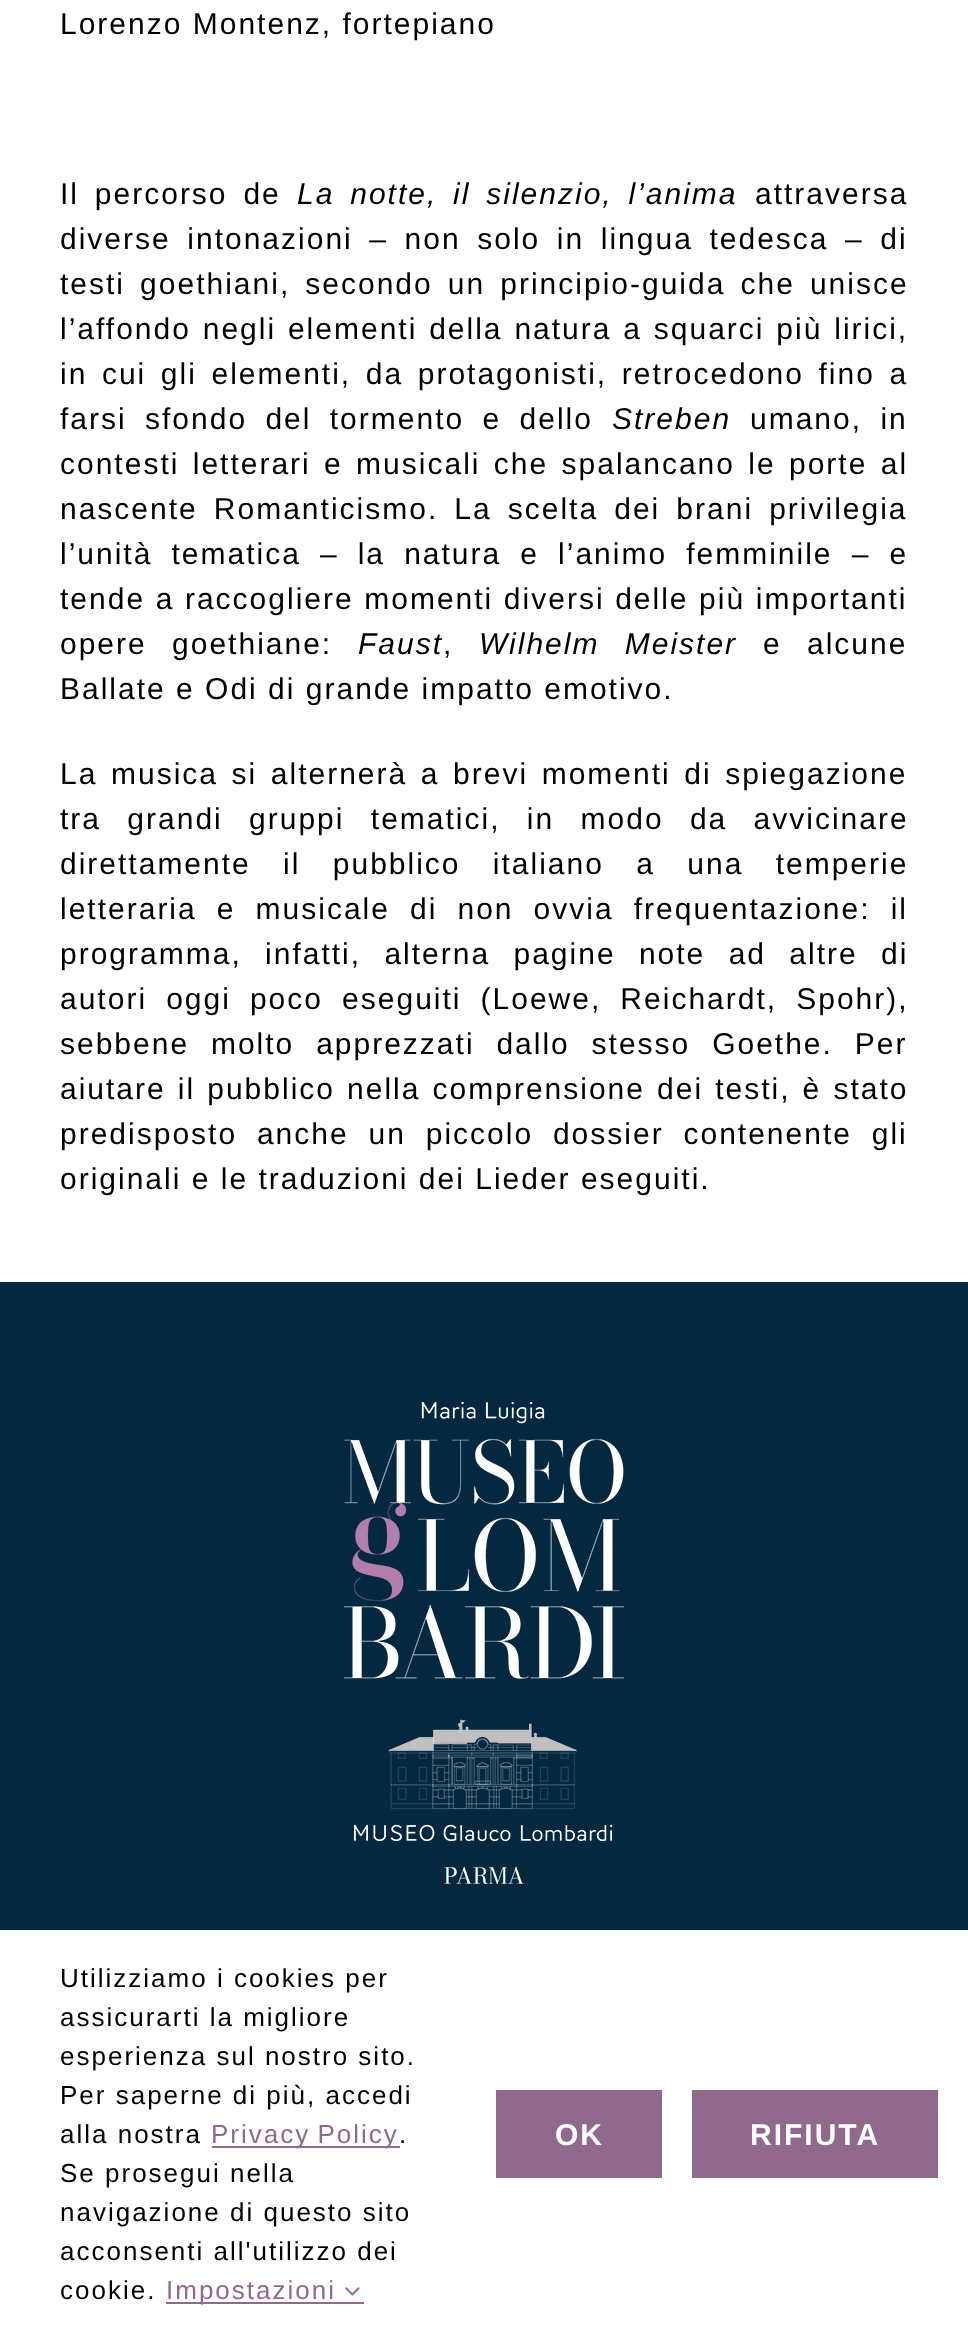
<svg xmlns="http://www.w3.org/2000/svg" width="968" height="2340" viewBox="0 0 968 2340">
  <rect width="100%" height="100%" fill="#ffffff"/>
  <text x="60" y="34" font-family="Liberation Sans" font-size="30" letter-spacing="2" fill="#000000">Lorenzo Montenz, fortepiano</text>
  <text x="60" y="204" word-spacing="5.5" font-family="Liberation Sans" font-size="30" letter-spacing="2" fill="#000000">Il percorso de</text>
  <text x="297" y="204" word-spacing="5.5" font-family="Liberation Sans" font-size="30" font-style="italic" letter-spacing="2" fill="#000000">La notte, il silenzio, l’anima</text>
  <text x="755" y="204" font-family="Liberation Sans" font-size="30" letter-spacing="2" fill="#000000">attraversa</text>
  <text x="60" y="249" word-spacing="6.25" font-family="Liberation Sans" font-size="30" letter-spacing="2" fill="#000000">diverse intonazioni – non solo in lingua tedesca – di</text>
  <text x="60" y="294" word-spacing="4.75" font-family="Liberation Sans" font-size="30" letter-spacing="2" fill="#000000">testi goethiani, secondo un principio-guida che unisce</text>
  <text x="60" y="339" word-spacing="1.5" font-family="Liberation Sans" font-size="30" letter-spacing="2" fill="#000000">l’affondo negli elementi della natura a squarci più lirici,</text>
  <text x="60" y="384" word-spacing="4.25" font-family="Liberation Sans" font-size="30" letter-spacing="2" fill="#000000">in cui gli elementi, da protagonisti, retrocedono fino a</text>
  <text x="60" y="429" word-spacing="8" font-family="Liberation Sans" font-size="30" letter-spacing="2" fill="#000000">farsi sfondo del tormento e dello</text>
  <text x="612" y="429" font-family="Liberation Sans" font-size="30" font-style="italic" letter-spacing="2" fill="#000000">Streben</text>
  <text x="750" y="429" word-spacing="8" font-family="Liberation Sans" font-size="30" letter-spacing="2" fill="#000000">umano, in</text>
  <text x="60" y="474" word-spacing="3" font-family="Liberation Sans" font-size="30" letter-spacing="2" fill="#000000">contesti letterari e musicali che spalancano le porte al</text>
  <text x="60" y="519" word-spacing="5.75" font-family="Liberation Sans" font-size="30" letter-spacing="2" fill="#000000">nascente Romanticismo. La scelta dei brani privilegia</text>
  <text x="60" y="564" word-spacing="8.75" font-family="Liberation Sans" font-size="30" letter-spacing="2" fill="#000000">l’unità tematica – la natura e l’animo femminile – e</text>
  <text x="60" y="609" word-spacing="0.25" font-family="Liberation Sans" font-size="30" letter-spacing="2" fill="#000000">tende a raccogliere momenti diversi delle più importanti</text>
  <text x="60" y="654" word-spacing="15" font-family="Liberation Sans" font-size="30" letter-spacing="2" fill="#000000">opere goethiane:</text>
  <text x="358" y="654" font-family="Liberation Sans" font-size="30" font-style="italic" letter-spacing="2" fill="#000000">Faust</text>
  <text x="443" y="654" font-family="Liberation Sans" font-size="30" letter-spacing="2" fill="#000000">,</text>
  <text x="479" y="654" word-spacing="15" font-family="Liberation Sans" font-size="30" font-style="italic" letter-spacing="2" fill="#000000">Wilhelm Meister</text>
  <text x="763" y="654" word-spacing="15" font-family="Liberation Sans" font-size="30" letter-spacing="2" fill="#000000">e alcune</text>
  <text x="60" y="699" font-family="Liberation Sans" font-size="30" letter-spacing="2" fill="#000000">Ballate e Odi di grande impatto emotivo.</text>
  <text x="60" y="784" word-spacing="3.25" font-family="Liberation Sans" font-size="30" letter-spacing="2" fill="#000000">La musica si alternerà a brevi momenti di spiegazione</text>
  <text x="60" y="829" word-spacing="16" font-family="Liberation Sans" font-size="30" letter-spacing="2" fill="#000000">tra grandi gruppi tematici, in modo da avvicinare</text>
  <text x="60" y="874" word-spacing="22" font-family="Liberation Sans" font-size="30" letter-spacing="2" fill="#000000">direttamente il pubblico italiano a una temperie</text>
  <text x="60" y="919" word-spacing="9.75" font-family="Liberation Sans" font-size="30" letter-spacing="2" fill="#000000">letteraria e musicale di non ovvia frequentazione: il</text>
  <text x="60" y="964" word-spacing="13" font-family="Liberation Sans" font-size="30" letter-spacing="2" fill="#000000">programma, infatti, alterna pagine note ad altre di</text>
  <text x="60" y="1009" word-spacing="8.75" font-family="Liberation Sans" font-size="30" letter-spacing="2" fill="#000000">autori oggi poco eseguiti (Loewe, Reichardt, Spohr),</text>
  <text x="60" y="1054" word-spacing="11.5" font-family="Liberation Sans" font-size="30" letter-spacing="2" fill="#000000">sebbene molto apprezzati dallo stesso Goethe. Per</text>
  <text x="60" y="1099" word-spacing="1.75" font-family="Liberation Sans" font-size="30" letter-spacing="2" fill="#000000">aiutare il pubblico nella comprensione dei testi, è stato</text>
  <text x="60" y="1144" word-spacing="9.5" font-family="Liberation Sans" font-size="30" letter-spacing="2" fill="#000000">predisposto anche un piccolo dossier contenente gli</text>
  <text x="60" y="1189" font-family="Liberation Sans" font-size="30" letter-spacing="2" fill="#000000">originali e le traduzioni dei Lieder eseguiti.</text>
  <rect x="0" y="1282" width="968" height="648" fill="#032840"/>
  <image x="344" y="1402" width="280" height="482" href="img1.png"/>
  <text x="60" y="1987" font-family="Liberation Sans" font-size="26" letter-spacing="2" fill="#000000">Utilizziamo i cookies per</text>
  <text x="60" y="2026" font-family="Liberation Sans" font-size="26" letter-spacing="2" fill="#000000">assicurarti la migliore</text>
  <text x="60" y="2065" font-family="Liberation Sans" font-size="26" letter-spacing="2" fill="#000000">esperienza sul nostro sito.</text>
  <text x="60" y="2104" font-family="Liberation Sans" font-size="26" letter-spacing="2" fill="#000000">Per saperne di più, accedi</text>
  <text x="60" y="2143" font-family="Liberation Sans" font-size="26" letter-spacing="2" fill="#000000">alla nostra</text>
  <rect x="212" y="2146" width="188" height="2" fill="#91698d"/>
  <text x="211" y="2143" word-spacing="-2" font-family="Liberation Sans" font-size="26" letter-spacing="2" fill="#91698d">Privacy Policy</text>
  <text x="399" y="2143" font-family="Liberation Sans" font-size="26" letter-spacing="2" fill="#000000">.</text>
  <text x="60" y="2182" font-family="Liberation Sans" font-size="26" letter-spacing="2" fill="#000000">Se prosegui nella</text>
  <text x="60" y="2221" font-family="Liberation Sans" font-size="26" letter-spacing="2" fill="#000000">navigazione di questo sito</text>
  <text x="60" y="2260" font-family="Liberation Sans" font-size="26" letter-spacing="2" fill="#000000">acconsenti all'utilizzo dei</text>
  <text x="60" y="2299" font-family="Liberation Sans" font-size="26" letter-spacing="2" fill="#000000">cookie.</text>
  <rect x="166" y="2302" width="198" height="2" fill="#91698d"/>
  <text x="166" y="2299" font-family="Liberation Sans" font-size="26" letter-spacing="2" fill="#91698d">Impostazioni</text>
  <image x="345" y="2287" width="15" height="9" href="img2.png"/>
  <rect x="496" y="2090" width="166" height="88" fill="#91698d"/>
  <text x="555" y="2145" font-family="Liberation Sans" font-size="30" font-weight="bold" letter-spacing="2" fill="#ffffff">OK</text>
  <rect x="692" y="2090" width="246" height="88" fill="#91698d"/>
  <text x="750" y="2145" font-family="Liberation Sans" font-size="30" font-weight="bold" letter-spacing="2" fill="#ffffff">RIFIUTA</text>
</svg>
